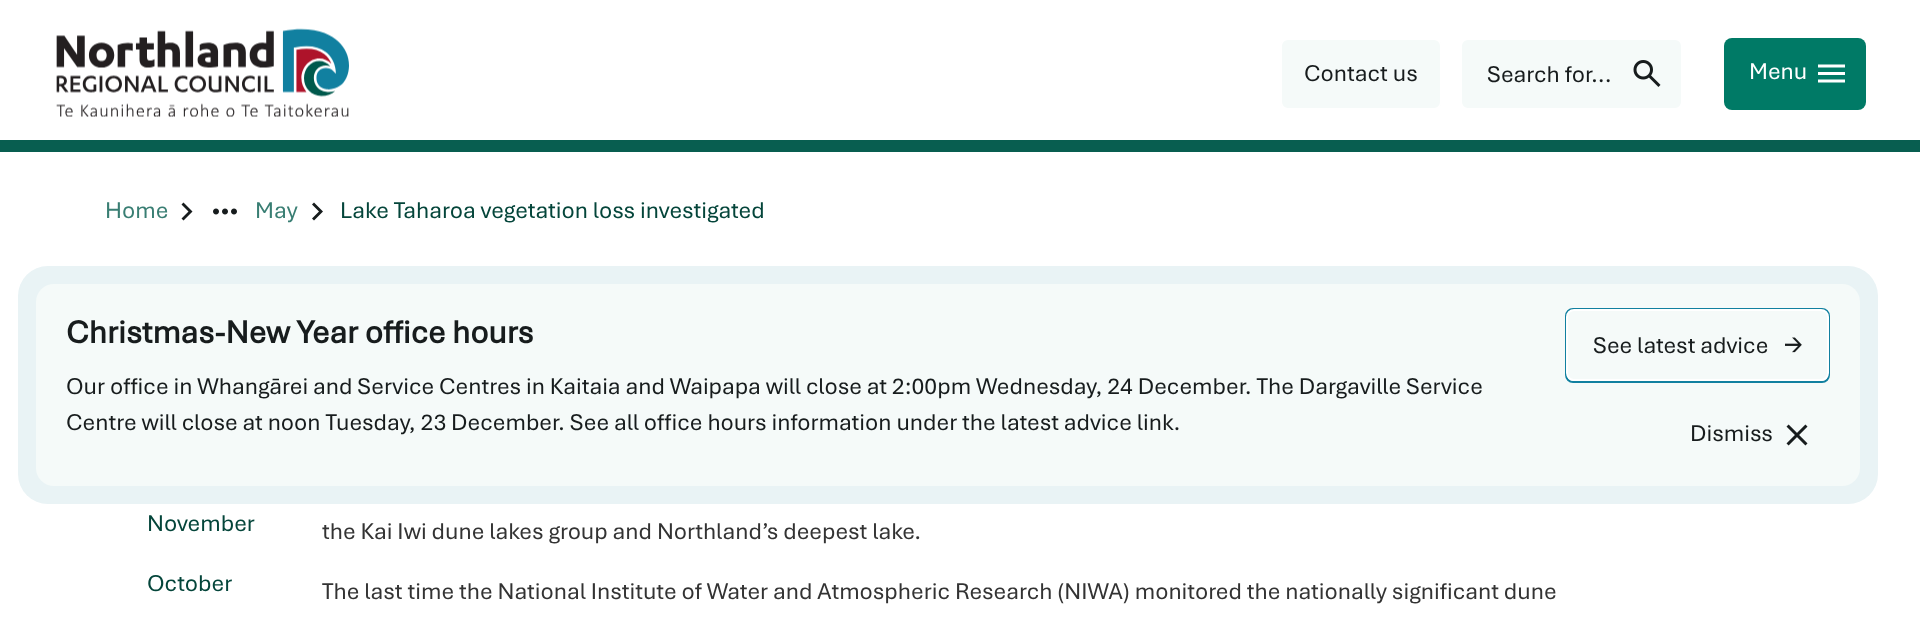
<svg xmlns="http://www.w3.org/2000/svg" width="1920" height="624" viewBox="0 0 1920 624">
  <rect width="100%" height="100%" fill="#ffffff"/>
  <rect x="0" y="140" width="1920" height="12" fill="#085e50"/>
  <image x="56" y="28" width="293" height="89" href="img1.png"/>
  <rect x="1281" y="39" width="160" height="70" rx="7" fill="#f5faf9" stroke="#ffffff" stroke-width="2"/>
  <text x="1304" y="81" font-family="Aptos" font-size="24" fill="#171c1d">Contact us</text>
  <rect x="1461" y="39" width="221" height="70" rx="7" fill="#f5faf9" stroke="#ffffff" stroke-width="2"/>
  <text x="1487" y="82" font-family="Aptos" font-size="24" fill="#171c1d">Search for...</text>
  <image x="1633" y="60" width="28" height="27" href="img2.png"/>
  <rect x="1724" y="38" width="142" height="72" rx="8" fill="#007a66"/>
  <text x="1749" y="79" font-family="Aptos" font-size="24" fill="#ffffff">Menu</text>
  <image x="1818" y="64" width="27" height="19" href="img3.png"/>
  <text x="105" y="218" font-family="Aptos" font-size="24" fill="#397e73">Home</text>
  <path d="M188.5 211.5L181.5 204.5L183.5 202.5L192.5 211.5L183.5 220.5L181.5 218.5Z" fill="#171c1d"/>
  <image x="213" y="208" width="24" height="7" href="img4.png"/>
  <text x="255" y="218" font-family="Aptos" font-size="24" fill="#397e73">May</text>
  <path d="M319 211.5L312 204.5L314 202.5L323 211.5L314 220.5L312 218.5Z" fill="#171c1d"/>
  <text x="340" y="218" font-family="Aptos" font-size="24" fill="#04453a">Lake Taharoa vegetation loss investigated</text>
  <rect x="18" y="266" width="1860" height="238" rx="30" fill="#e9f3f5"/>
  <rect x="36" y="284" width="1824" height="202" rx="18" fill="#f5faf9"/>
  <text x="66" y="343" font-family="Aptos" font-size="33" font-weight="bold" fill="#171c1d">Christmas-New Year office hours</text>
  <text x="66" y="394" font-family="Aptos" font-size="24" fill="#171c1d">Our office in Whangārei and Service Centres in Kaitaia and Waipapa will close at 2:00pm Wednesday, 24 December. The Dargaville Service</text>
  <text x="66" y="430" font-family="Aptos" font-size="24" fill="#171c1d">Centre will close at noon Tuesday, 23 December. See all office hours information under the latest advice link.</text>
  <rect x="1566" y="309" width="263" height="73" rx="7" fill="none" stroke="#1180a0" stroke-width="2"/>
  <rect x="1567" y="310" width="261" height="70" rx="7" fill="#f5faf9" stroke="#ffffff" stroke-width="2"/>
  <text x="1593" y="353" font-family="Aptos" font-size="24" fill="#171c1d">See latest advice</text>
  <image x="1785" y="337" width="17" height="16" href="img5.png"/>
  <text x="1690" y="441" font-family="Aptos" font-size="24" fill="#171c1d">Dismiss</text>
  <image x="1786" y="424" width="22" height="22" href="img6.png"/>
  <text x="147" y="531" font-family="Aptos" font-size="24" fill="#04453a">November</text>
  <text x="147" y="591" font-family="Aptos" font-size="24" fill="#04453a">October</text>
  <text x="322" y="539" font-family="Aptos" font-size="24" fill="#333333">the Kai Iwi dune lakes group and Northland’s deepest lake.</text>
  <text x="322" y="599" font-family="Aptos" font-size="24" fill="#333333">The last time the National Institute of Water and Atmospheric Research (NIWA) monitored the nationally significant dune</text>
</svg>
